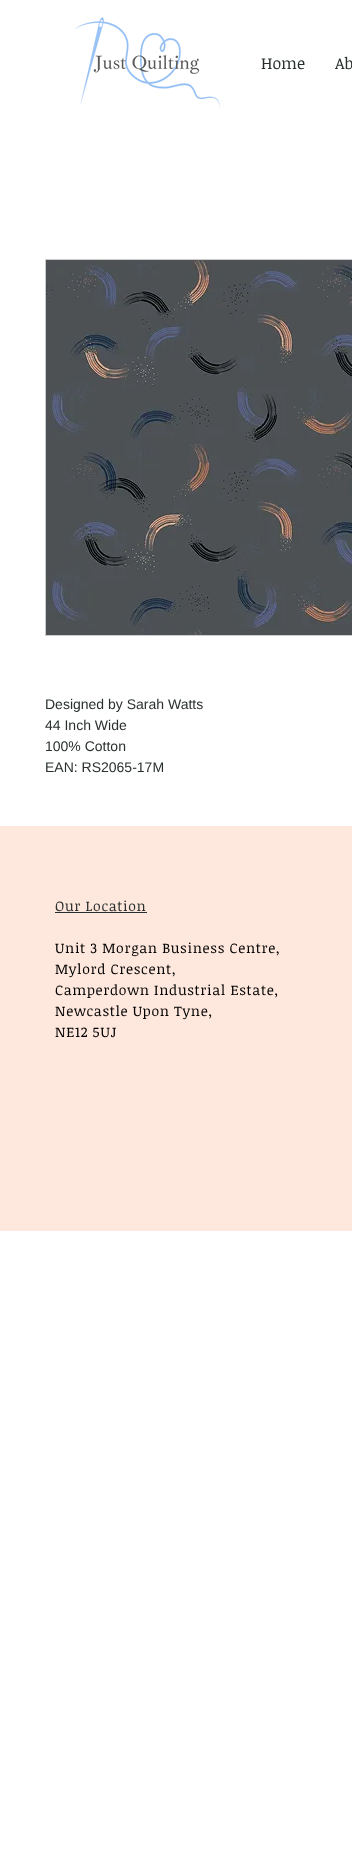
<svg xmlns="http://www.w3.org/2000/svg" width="352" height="1853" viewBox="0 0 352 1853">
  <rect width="100%" height="100%" fill="#ffffff"/>
  <image x="75" y="17" width="145" height="91" href="img1.png"/>
  <text x="261" y="69" font-family="Noticia Text" font-size="16" fill="#292f2f">Home</text>
  <text x="335" y="69" font-family="Noticia Text" font-size="16" fill="#292f2f">Ab</text>
  <rect x="45.5" y="259.5" width="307" height="376" fill="none" stroke="#cccccc"/>
  <image x="46" y="260" width="306" height="375" href="img2.png"/>
  <text x="45" y="709" font-family="Liberation Sans" font-size="14" fill="#292f2f">Designed by Sarah Watts</text>
  <text x="45" y="730" font-family="Liberation Sans" font-size="14" fill="#292f2f">44 Inch Wide</text>
  <text x="45" y="751" font-family="Liberation Sans" font-size="14" fill="#292f2f">100% Cotton</text>
  <text x="45" y="772" font-family="Liberation Sans" font-size="14" fill="#292f2f">EAN: RS2065-17M</text>
  <rect x="0" y="826" width="352" height="405" fill="#fee7dc"/>
  <text x="55" y="911" font-family="Noticia Text" font-size="14" letter-spacing="0.7" fill="#292f2f">Our Location</text>
  <rect x="55" y="912" width="92" height="1" fill="#292f2f"/>
  <text x="55" y="953" font-family="Noticia Text" font-size="14" letter-spacing="0.7" fill="#000000">Unit 3 Morgan Business Centre,</text>
  <text x="55" y="974" font-family="Noticia Text" font-size="14" letter-spacing="0.7" fill="#000000">Mylord Crescent,</text>
  <text x="55" y="995" font-family="Noticia Text" font-size="14" letter-spacing="0.7" fill="#000000">Camperdown Industrial Estate,</text>
  <text x="55" y="1016" font-family="Noticia Text" font-size="14" letter-spacing="0.7" fill="#000000">Newcastle Upon Tyne,</text>
  <text x="55" y="1037" font-family="Noticia Text" font-size="14" letter-spacing="0.7" fill="#000000">NE12 5UJ</text>
</svg>
